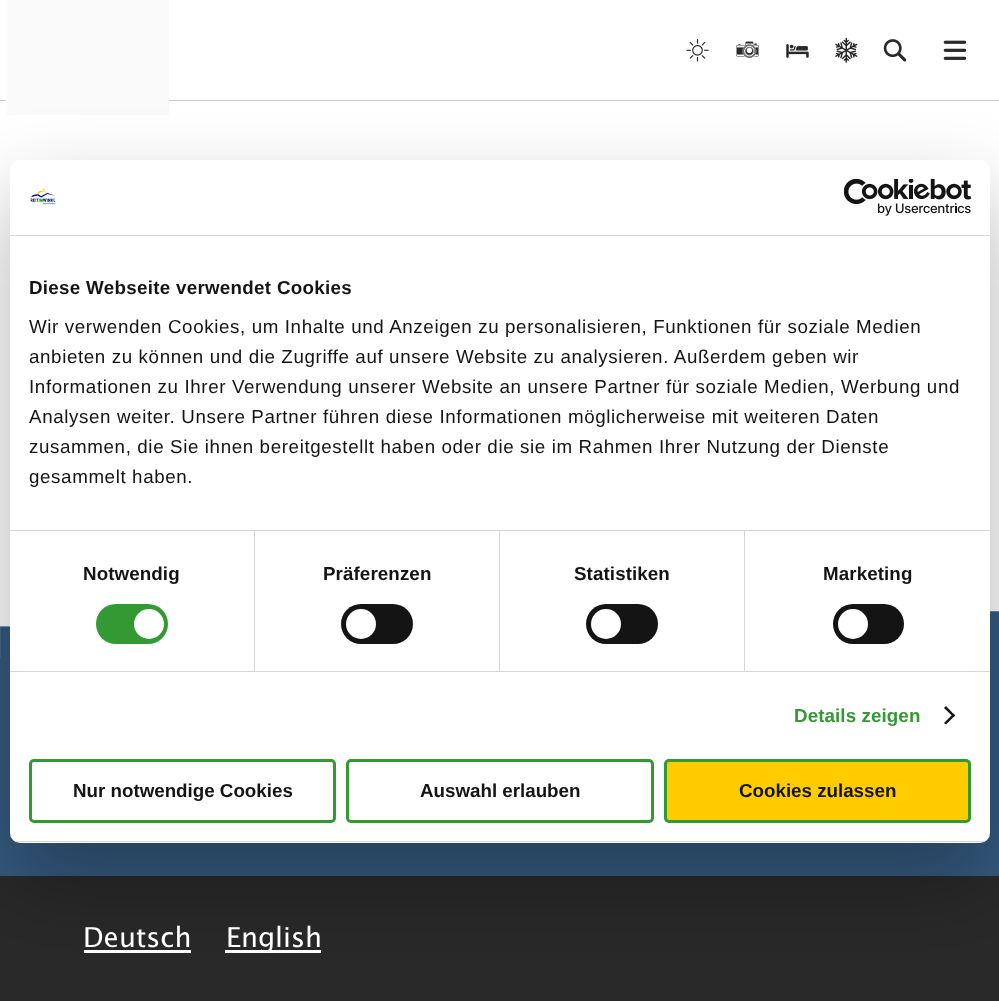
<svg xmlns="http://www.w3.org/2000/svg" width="999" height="1001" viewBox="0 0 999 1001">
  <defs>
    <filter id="blur1" x="-50%" y="-200%" width="200%" height="500%"><feGaussianBlur stdDeviation="42.5"/></filter>
    <clipPath id="clip1"><rect x="10" y="160" width="980" height="683" rx="10"/></clipPath>
  </defs>
  <rect width="100%" height="100%" fill="#ffffff"/>
  <rect x="0" y="100" width="999" height="1" fill="#c8c8c8"/>
  <rect x="6" y="0" width="163" height="115" fill="#fafafa"/>
  <image x="686" y="39" width="23" height="23" href="img1.png"/>
  <image x="736" y="41" width="23" height="17" href="img2.png"/>
  <image x="786" y="44" width="23" height="14" href="img3.png"/>
  <image x="835" y="37" width="23" height="26" href="img4.png"/>
  <image x="883" y="39" width="24" height="23" href="img5.png"/>
  <image x="943" y="40" width="24" height="20" href="img6.png"/>
  <image x="0" y="611" width="999" height="47" href="img9.png"/>
  <rect x="0" y="658" width="999" height="218" fill="#355a80"/>
  <rect x="0" y="876" width="999" height="125" fill="#292929"/>
  <rect x="84" y="950" width="107" height="3" fill="#ffffff"/>
  <rect x="225" y="950" width="96" height="3" fill="#ffffff"/>
  <rect x="10" y="200" width="980" height="683" rx="10" fill="#000000" fill-opacity="0.3" filter="url(#blur1)"/>
  <rect x="10" y="160" width="980" height="683" rx="10" fill="#ffffff"/>
  <rect x="10" y="235" width="980" height="1" fill="#d6d6d6"/>
  <image x="30" y="188" width="26" height="17" href="img7.png"/>
  <image x="844" y="179" width="127" height="37" href="img8.png"/>
  <rect x="10" y="530" width="980" height="1" fill="#d6d6d6"/>
  <text x="29" y="294" font-family="Liberation Sans" font-size="18.75" font-weight="bold" letter-spacing="0.3" fill="#141414">Diese Webseite verwendet Cookies</text>
  <text x="29" y="333" font-family="Liberation Sans" font-size="18.75" letter-spacing="0.62" fill="#141414">Wir verwenden Cookies, um Inhalte und Anzeigen zu personalisieren, Funktionen für soziale Medien</text>
  <text x="29" y="363" font-family="Liberation Sans" font-size="18.75" letter-spacing="0.62" fill="#141414">anbieten zu können und die Zugriffe auf unsere Website zu analysieren. Außerdem geben wir</text>
  <text x="29" y="393" font-family="Liberation Sans" font-size="18.75" letter-spacing="0.62" fill="#141414">Informationen zu Ihrer Verwendung unserer Website an unsere Partner für soziale Medien, Werbung und</text>
  <text x="29" y="423" font-family="Liberation Sans" font-size="18.75" letter-spacing="0.62" fill="#141414">Analysen weiter. Unsere Partner führen diese Informationen möglicherweise mit weiteren Daten</text>
  <text x="29" y="453" font-family="Liberation Sans" font-size="18.75" letter-spacing="0.62" fill="#141414">zusammen, die Sie ihnen bereitgestellt haben oder die sie im Rahmen Ihrer Nutzung der Dienste</text>
  <text x="29" y="483" font-family="Liberation Sans" font-size="18.75" letter-spacing="0.62" fill="#141414">gesammelt haben.</text>
  <rect x="10" y="671" width="980" height="1" fill="#d6d6d6"/>
  <rect x="254" y="531" width="1" height="140" fill="#d6d6d6"/>
  <text x="83" y="580" font-family="Liberation Sans" font-size="18.75" font-weight="bold" letter-spacing="0.1" fill="#141414">Notwendig</text>
  <rect x="96" y="604" width="72" height="40" rx="20" fill="#339933"/>
  <circle cx="149" cy="624" r="15" fill="#ffffff"/>
  <rect x="499" y="531" width="1" height="140" fill="#d6d6d6"/>
  <text x="323" y="580" font-family="Liberation Sans" font-size="18.75" font-weight="bold" letter-spacing="0.1" fill="#141414">Präferenzen</text>
  <rect x="341" y="604" width="72" height="40" rx="20" fill="#141414"/>
  <circle cx="361" cy="624" r="15" fill="#ffffff"/>
  <rect x="744" y="531" width="1" height="140" fill="#d6d6d6"/>
  <text x="574" y="580" font-family="Liberation Sans" font-size="18.75" font-weight="bold" letter-spacing="0.1" fill="#141414">Statistiken</text>
  <rect x="586" y="604" width="72" height="40" rx="20" fill="#141414"/>
  <circle cx="606" cy="624" r="15" fill="#ffffff"/>
  <text x="823" y="580" font-family="Liberation Sans" font-size="18.75" font-weight="bold" letter-spacing="0.1" fill="#141414">Marketing</text>
  <rect x="833" y="604" width="71" height="40" rx="20" fill="#141414"/>
  <circle cx="853" cy="624" r="15" fill="#ffffff"/>
  <text x="794" y="722" font-family="Liberation Sans" font-size="18.75" font-weight="bold" letter-spacing="0.1" fill="#339933">Details zeigen</text>
  <path d="M946 706L955 715.5L953.5 717L944 708Z" fill="#141414"/>
  <path d="M953.5 713.5L955 715.5L946 724.5L944 723Z" fill="#141414"/>
  <g clip-path="url(#clip1)">
    <rect x="10" y="841" width="980" height="1" fill="#d6d6d6"/>
  </g>
  <rect x="30.5" y="760.5" width="304" height="61" rx="3.5" fill="none" stroke="#339933" stroke-width="3"/>
  <text x="73" y="797" font-family="Liberation Sans" font-size="18.75" font-weight="bold" fill="#141414">Nur notwendige Cookies</text>
  <rect x="347.5" y="760.5" width="305" height="61" rx="3.5" fill="none" stroke="#339933" stroke-width="3"/>
  <text x="420" y="797" font-family="Liberation Sans" font-size="18.75" font-weight="bold" fill="#141414">Auswahl erlauben</text>
  <rect x="665.5" y="760.5" width="304" height="61" rx="3.5" fill="#ffcc00" stroke="#339933" stroke-width="3"/>
  <text x="739" y="797" font-family="Liberation Sans" font-size="18.75" font-weight="bold" fill="#141414">Cookies zulassen</text>
  <text x="83" y="947" font-family="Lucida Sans" font-size="27.5" fill="#ffffff">Deutsch</text>
  <text x="226" y="947" font-family="Lucida Sans" font-size="27.5" fill="#ffffff">English</text>
</svg>
